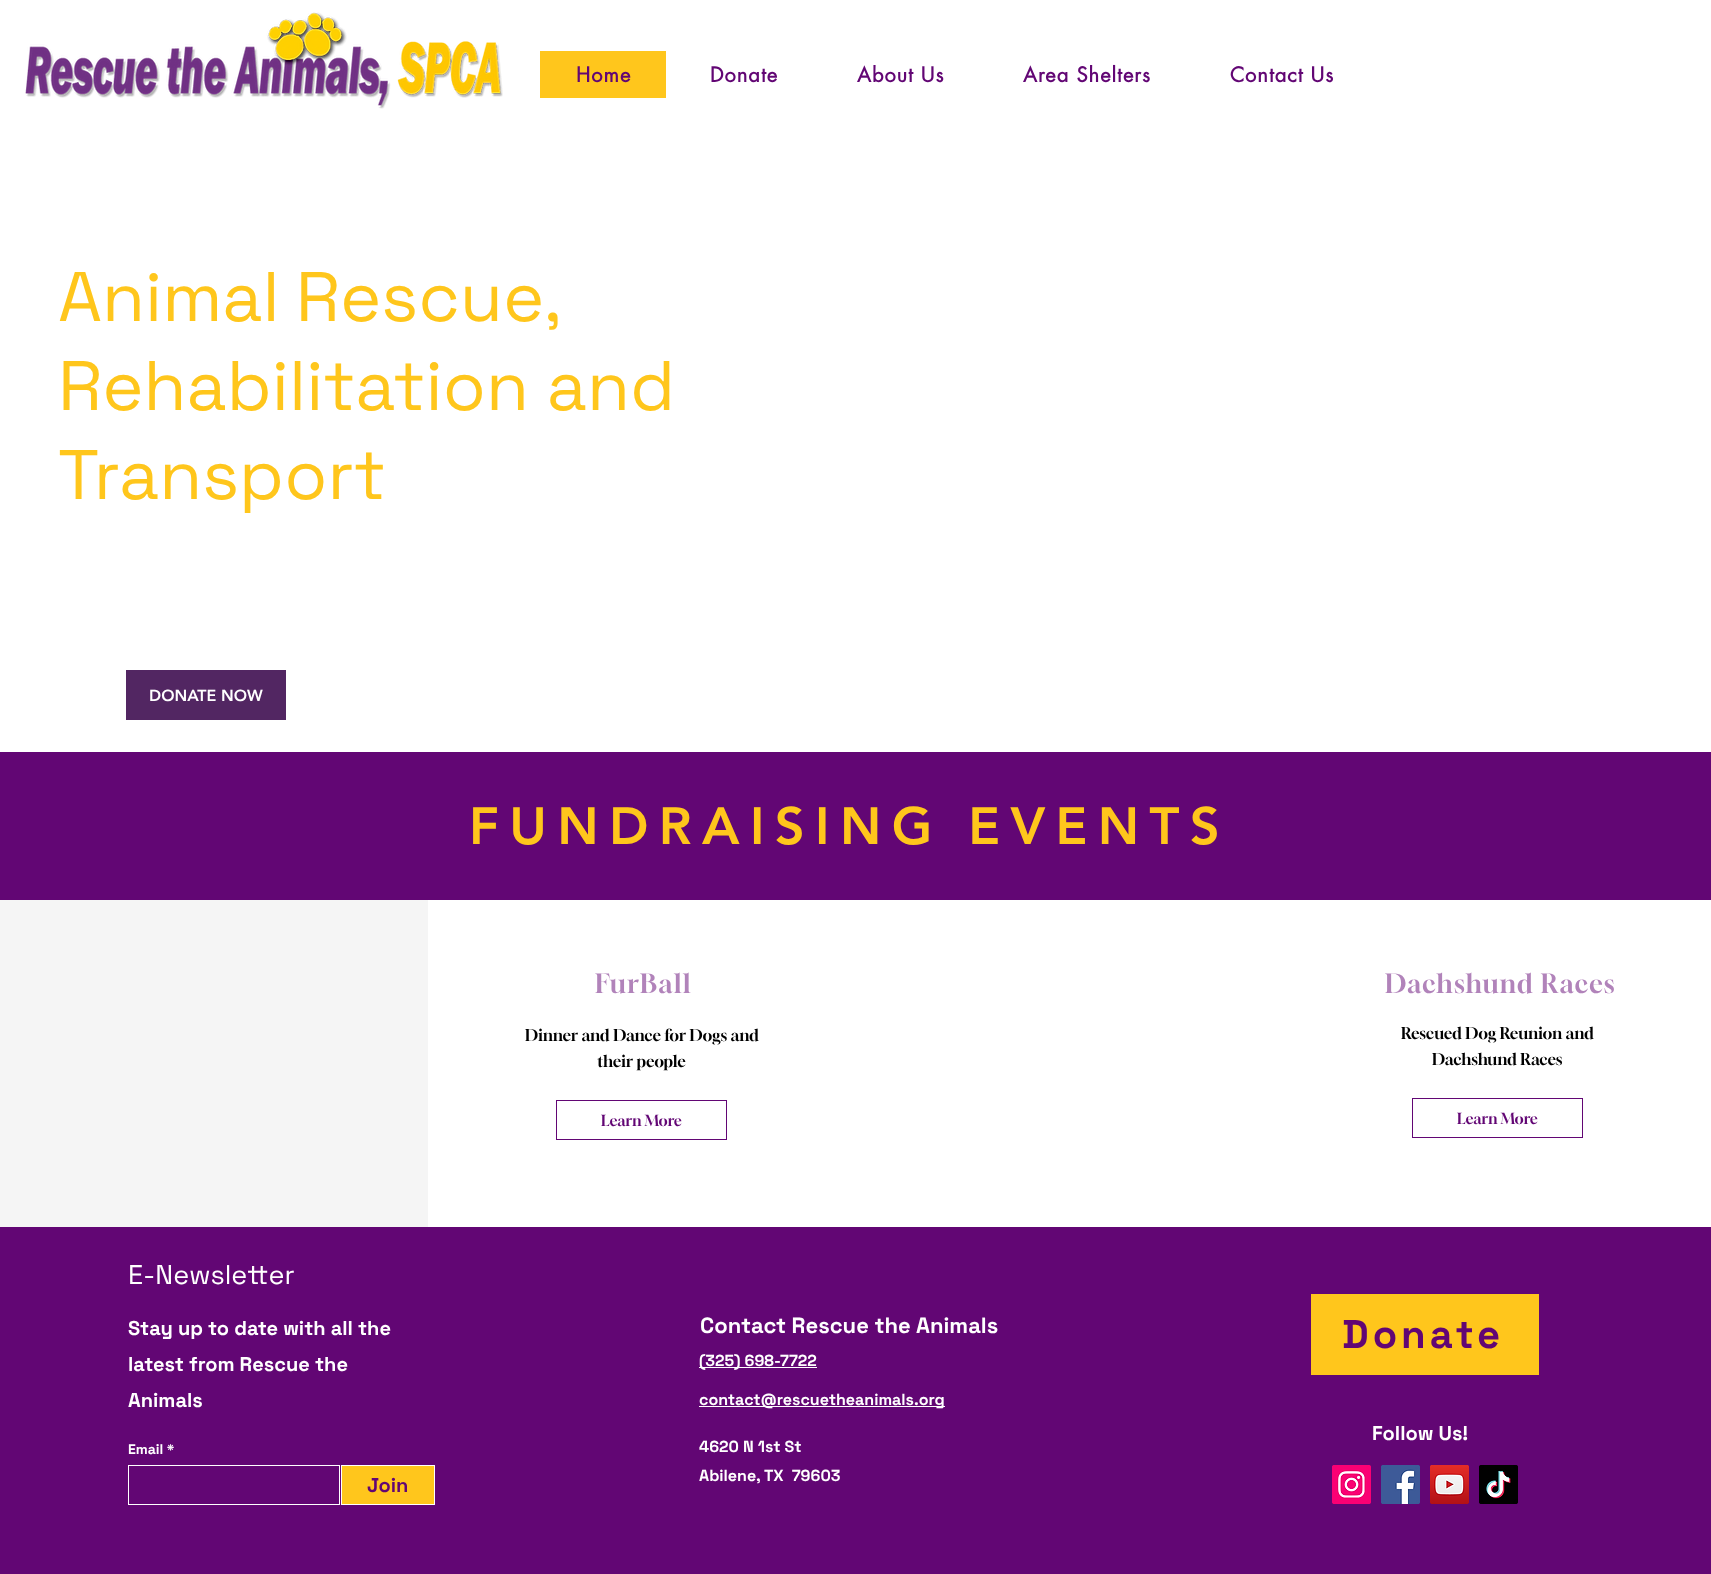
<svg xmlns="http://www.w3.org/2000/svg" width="1711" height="1574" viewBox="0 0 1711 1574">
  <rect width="100%" height="100%" fill="#ffffff"/>
  <image x="25" y="12" width="478" height="97" href="img1.png"/>
  <rect x="540" y="51" width="126" height="47" fill="#ffc61c"/>
  <text x="576" y="82" font-family="futura" font-size="20" font-weight="bold" letter-spacing="1" fill="#620674">Home</text>
  <text x="710" y="82" font-family="futura" font-size="20" font-weight="bold" letter-spacing="1" fill="#620674">Donate</text>
  <text x="857" y="82" font-family="futura" font-size="20" font-weight="bold" letter-spacing="1" fill="#620674">About Us</text>
  <text x="1023" y="82" font-family="futura" font-size="20" font-weight="bold" letter-spacing="1" fill="#620674">Area Shelters</text>
  <text x="1230" y="82" font-family="futura" font-size="20" font-weight="bold" letter-spacing="1" fill="#620674">Contact Us</text>
  <text x="58" y="321" word-spacing="-2" font-family="Space Grotesk" font-size="70" fill="#ffc61c">Animal Rescue,</text>
  <text x="58" y="410" font-family="Space Grotesk" font-size="70" fill="#ffc61c">Rehabilitation and</text>
  <text x="58" y="499" font-family="Space Grotesk" font-size="70" fill="#ffc61c">Transport</text>
  <rect x="126" y="670" width="160" height="50" fill="#522662"/>
  <text x="149" y="701" font-family="'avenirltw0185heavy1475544'" font-size="16" font-weight="900" fill="#ffffff">DONATE NOW</text>
  <rect x="0" y="752" width="1711" height="148" fill="#620674"/>
  <text x="469" y="844" font-family="'avenirltw0185heavy1475544'" font-size="52" font-weight="900" letter-spacing="10.4" fill="#ffc61c">FUNDRAISING EVENTS</text>
  <rect x="0" y="900" width="428" height="327" fill="#f5f5f5"/>
  <text x="595" y="993" font-family="Gloock" font-size="26" letter-spacing="1.25" fill="#b183ba">FurBall</text>
  <text x="525" y="1041" font-family="Gloock" font-size="16" fill="#000000">Dinner and Dance for Dogs and</text>
  <text x="597" y="1067" font-family="Gloock" font-size="16" fill="#000000">their people</text>
  <rect x="556.5" y="1100.5" width="170" height="39" fill="none" stroke="#620674"/>
  <text x="601" y="1126" font-family="Gloock" font-size="15" fill="#620674">Learn More</text>
  <text x="1385" y="993" font-family="Gloock" font-size="26" letter-spacing="1.25" fill="#b183ba">Dachshund Races</text>
  <text x="1401" y="1039" font-family="Gloock" font-size="16" fill="#000000">Rescued Dog Reunion and</text>
  <text x="1432" y="1065" font-family="Gloock" font-size="16" fill="#000000">Dachshund Races</text>
  <rect x="1412.5" y="1098.5" width="170" height="39" fill="none" stroke="#620674"/>
  <text x="1457" y="1124" font-family="Gloock" font-size="15" fill="#620674">Learn More</text>
  <rect x="0" y="1227" width="1711" height="347" fill="#620674"/>
  <text x="128" y="1284" font-family="Space Grotesk" font-size="27" fill="#ffffff">E-Newsletter</text>
  <text x="128" y="1335" font-family="Space Grotesk" font-size="20" font-weight="bold" fill="#ffffff">Stay up to date with all the</text>
  <text x="128" y="1371" font-family="Space Grotesk" font-size="20" font-weight="bold" fill="#ffffff">latest from Rescue the</text>
  <text x="128" y="1407" font-family="Space Grotesk" font-size="20" font-weight="bold" fill="#ffffff">Animals</text>
  <text x="128" y="1454" font-family="Space Grotesk" font-size="14" font-weight="bold" fill="#ffffff">Email *</text>
  <rect x="128.5" y="1465.5" width="211" height="39" fill="none" stroke="#ffffff"/>
  <rect x="341.5" y="1465.5" width="93" height="39" fill="#ffc61c" stroke="#ffffff"/>
  <text x="367" y="1492" font-family="Space Grotesk" font-size="20" font-weight="bold" fill="#620674">Join</text>
  <text x="700" y="1333" font-family="Space Grotesk" font-size="22" font-weight="bold" fill="#ffffff">Contact Rescue the Animals</text>
  <rect x="699" y="1367" width="118" height="1" fill="#ffffff"/>
  <text x="699" y="1366" font-family="Space Grotesk" font-size="16" font-weight="bold" fill="#ffffff">(325) 698-7722</text>
  <rect x="699" y="1406" width="246" height="1" fill="#ffffff"/>
  <text x="699" y="1405" font-family="Space Grotesk" font-size="16" font-weight="bold" fill="#ffffff">contact@rescuetheanimals.org</text>
  <text x="699" y="1452" font-family="Space Grotesk" font-size="16" font-weight="bold" fill="#ffffff">4620 N 1st St</text>
  <text x="699" y="1481" font-family="Space Grotesk" font-size="16" font-weight="bold" fill="#ffffff" xml:space="preserve">Abilene, TX  79603</text>
  <rect x="1311" y="1294" width="228" height="81" fill="#ffc61c"/>
  <text x="1342" y="1348" font-family="Space Grotesk" font-size="40" font-weight="bold" letter-spacing="4" fill="#620674">Donate</text>
  <text x="1372" y="1440" font-family="Space Grotesk" font-size="20" font-weight="bold" fill="#ffffff">Follow Us!</text>
  <image x="1332" y="1465" width="39" height="39" href="img2.png"/>
  <image x="1381" y="1465" width="39" height="39" href="img3.png"/>
  <image x="1430" y="1465" width="39" height="39" href="img4.png"/>
  <image x="1479" y="1465" width="39" height="39" href="img5.png"/>
</svg>
